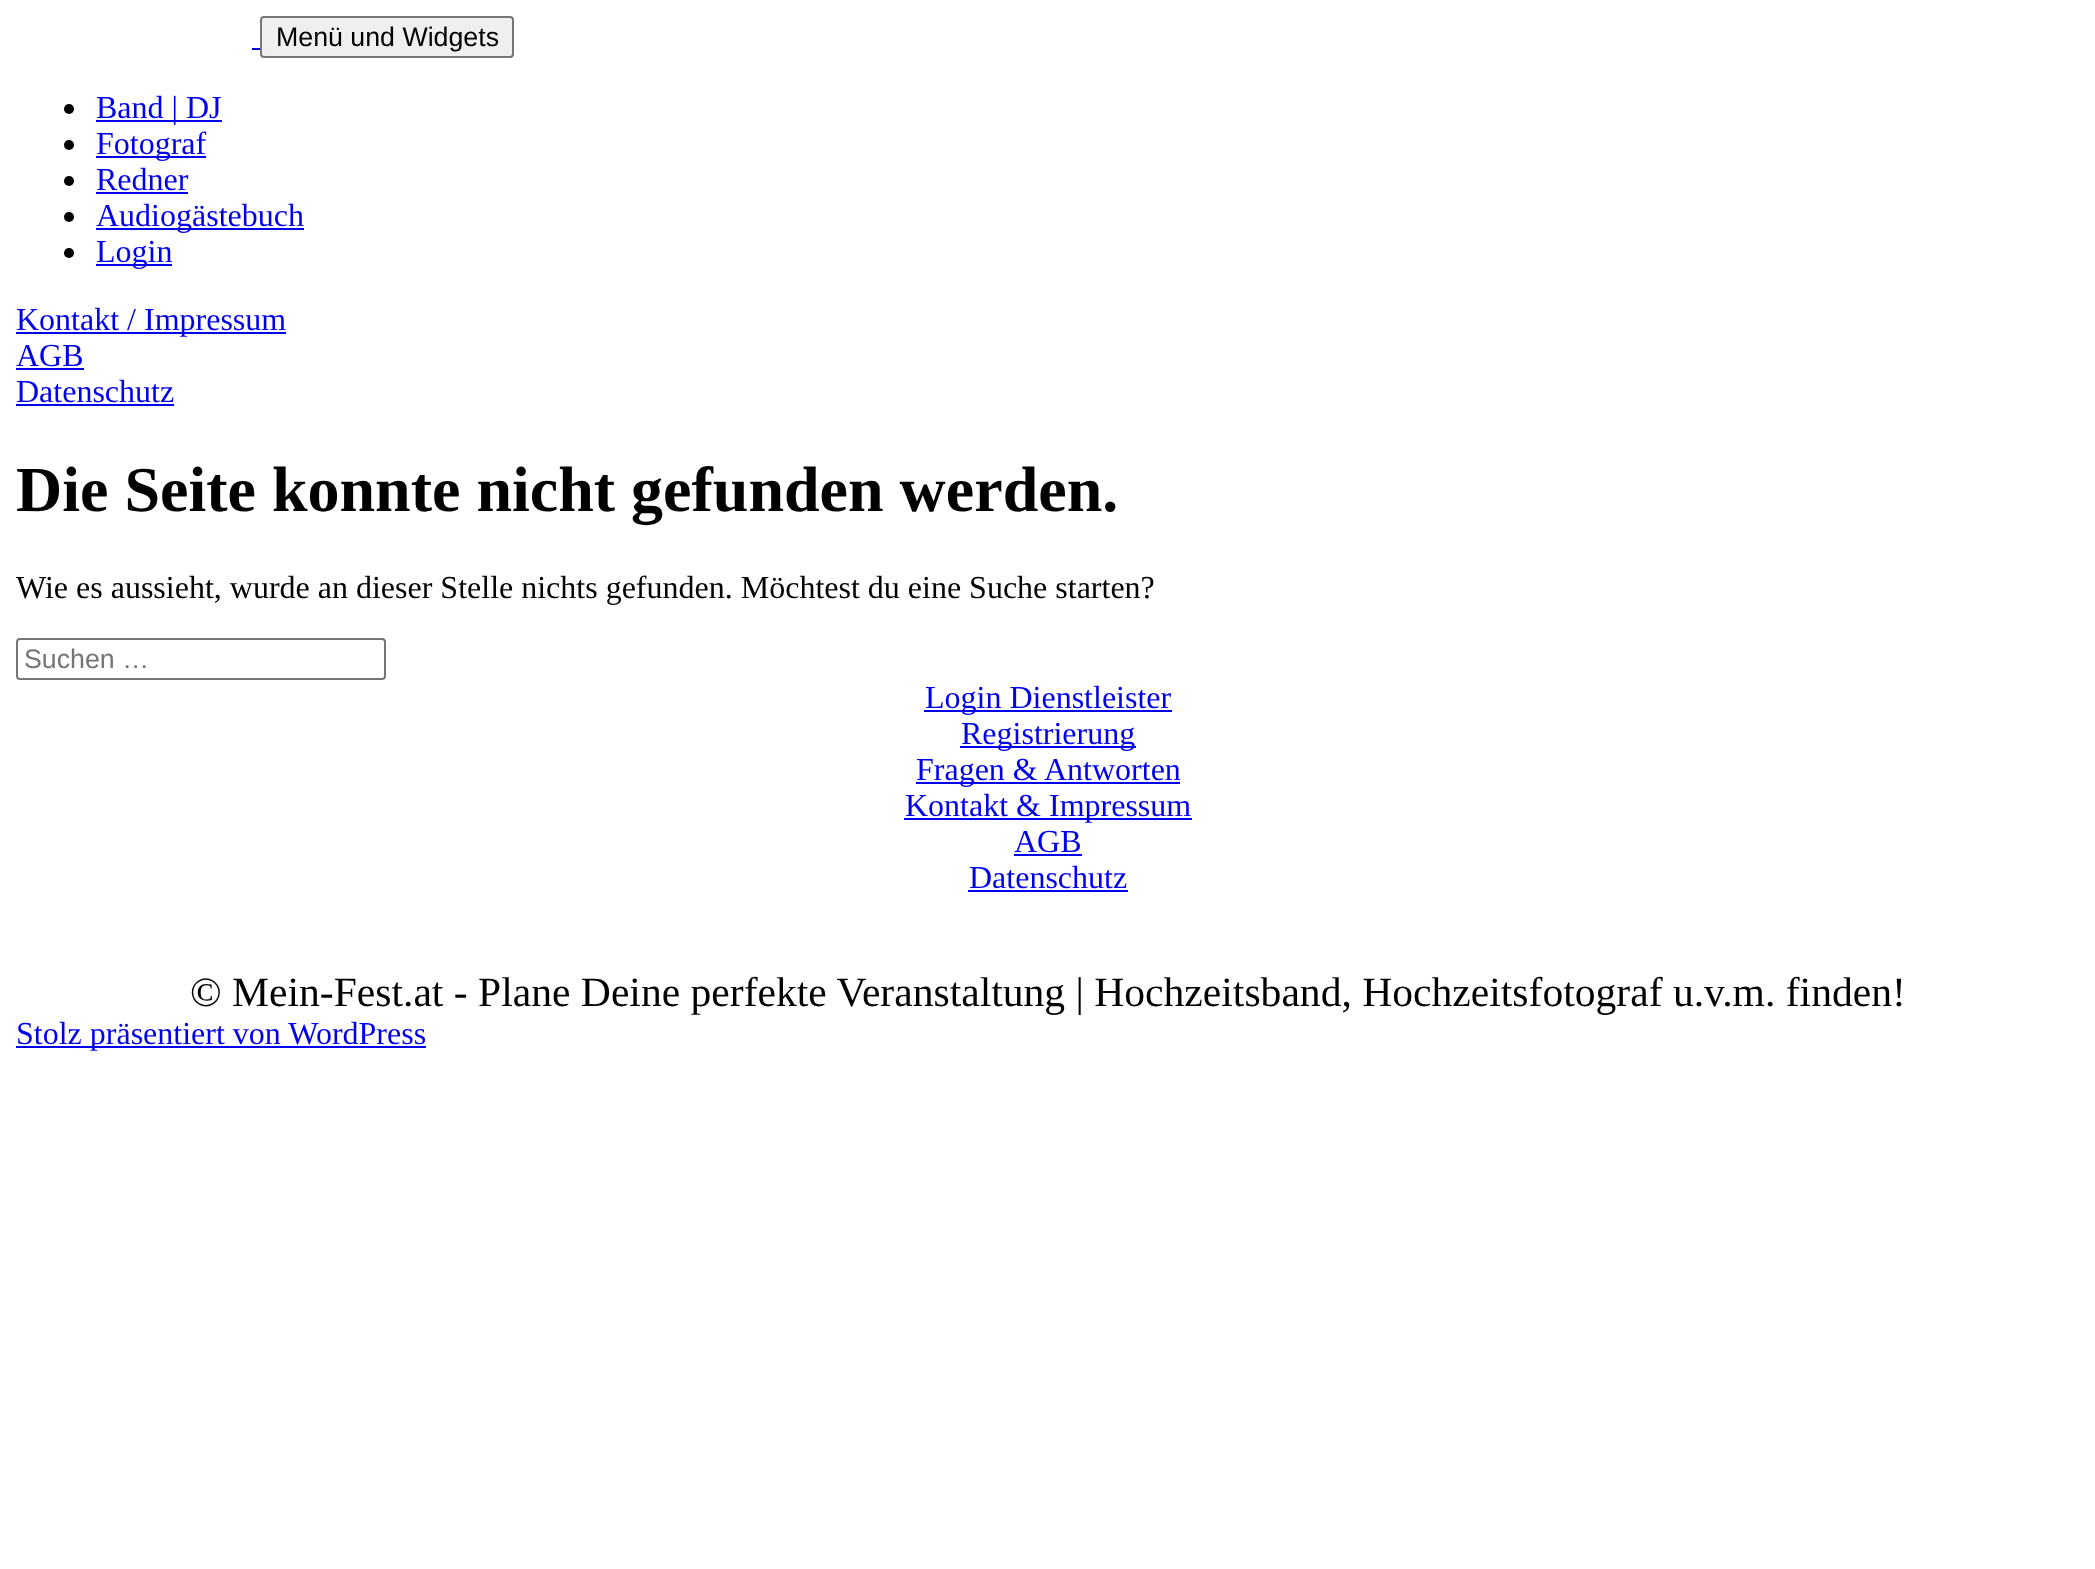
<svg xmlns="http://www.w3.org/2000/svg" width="2095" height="1569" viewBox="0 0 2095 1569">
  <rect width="100%" height="100%" fill="#ffffff"/>
  <rect x="252" y="48" width="8" height="2" fill="#0000ee"/>
  <rect x="261" y="17" width="252" height="40" rx="3" fill="#efefef" stroke="#767676" stroke-width="2"/>
  <text x="276" y="46" font-family="Liberation Sans" font-size="26.75" fill="#000000">Menü und Widgets</text>
  <circle cx="69" cy="109" r="5" fill="#000000"/>
  <rect x="96" y="120" width="126" height="2" fill="#0000ee"/>
  <text x="96" y="118" font-family="Liberation Serif" font-size="32" fill="#0000ee">Band | DJ</text>
  <circle cx="69" cy="145" r="5" fill="#000000"/>
  <rect x="96" y="156" width="110" height="2" fill="#0000ee"/>
  <text x="96" y="154" font-family="Liberation Serif" font-size="32" fill="#0000ee">Fotograf</text>
  <circle cx="69" cy="181" r="5" fill="#000000"/>
  <text x="96" y="190" font-family="Liberation Serif" font-size="32" fill="#0000ee">Redner</text>
  <rect x="96" y="192" width="92" height="2" fill="#0000ee"/>
  <circle cx="69" cy="217" r="5" fill="#000000"/>
  <rect x="96" y="228" width="208" height="2" fill="#0000ee"/>
  <text x="96" y="226" font-family="Liberation Serif" font-size="32" fill="#0000ee">Audiogästebuch</text>
  <circle cx="69" cy="253" r="5" fill="#000000"/>
  <rect x="96" y="264" width="76" height="2" fill="#0000ee"/>
  <text x="96" y="262" font-family="Liberation Serif" font-size="32" fill="#0000ee">Login</text>
  <rect x="16" y="332" width="270" height="2" fill="#0000ee"/>
  <text x="16" y="330" font-family="Liberation Serif" font-size="32" fill="#0000ee">Kontakt / Impressum</text>
  <text x="16" y="366" font-family="Liberation Serif" font-size="32" fill="#0000ee">AGB</text>
  <rect x="16" y="368" width="68" height="2" fill="#0000ee"/>
  <text x="16" y="402" font-family="Liberation Serif" font-size="32" fill="#0000ee">Datenschutz</text>
  <rect x="16" y="404" width="158" height="2" fill="#0000ee"/>
  <text x="16" y="511" font-family="Liberation Serif" font-size="64" font-weight="bold" fill="#000000">Die Seite konnte nicht gefunden werden.</text>
  <text x="16" y="598" font-family="Liberation Serif" font-size="32" fill="#000000">Wie es aussieht, wurde an dieser Stelle nichts gefunden. Möchtest du eine Suche starten?</text>
  <rect x="17" y="639" width="368" height="40" rx="3" fill="none" stroke="#767676" stroke-width="2"/>
  <text x="24" y="668" font-family="Liberation Sans" font-size="26.75" fill="#757575">Suchen …</text>
  <rect x="924" y="710" width="248" height="2" fill="#0000ee"/>
  <text x="925" y="708" font-family="Liberation Serif" font-size="32" fill="#0000ee">Login Dienstleister</text>
  <rect x="960" y="746" width="176" height="2" fill="#0000ee"/>
  <text x="961" y="744" font-family="Liberation Serif" font-size="32" fill="#0000ee">Registrierung</text>
  <rect x="916" y="782" width="264" height="2" fill="#0000ee"/>
  <text x="916" y="780" font-family="Liberation Serif" font-size="32" fill="#0000ee">Fragen &amp; Antworten</text>
  <rect x="904" y="818" width="288" height="2" fill="#0000ee"/>
  <text x="905" y="816" font-family="Liberation Serif" font-size="32" fill="#0000ee">Kontakt &amp; Impressum</text>
  <text x="1014" y="852" font-family="Liberation Serif" font-size="32" fill="#0000ee">AGB</text>
  <rect x="1014" y="854" width="68" height="2" fill="#0000ee"/>
  <text x="969" y="888" font-family="Liberation Serif" font-size="32" fill="#0000ee">Datenschutz</text>
  <rect x="968" y="890" width="160" height="2" fill="#0000ee"/>
  <text x="190" y="1006" font-family="Liberation Serif" font-size="41.6" fill="#000000">© Mein-Fest.at - Plane Deine perfekte Veranstaltung | Hochzeitsband, Hochzeitsfotograf u.v.m. finden!</text>
  <rect x="16" y="1046" width="410" height="2" fill="#0000ee"/>
  <text x="16" y="1044" font-family="Liberation Serif" font-size="32" fill="#0000ee">Stolz präsentiert von WordPress</text>
</svg>
